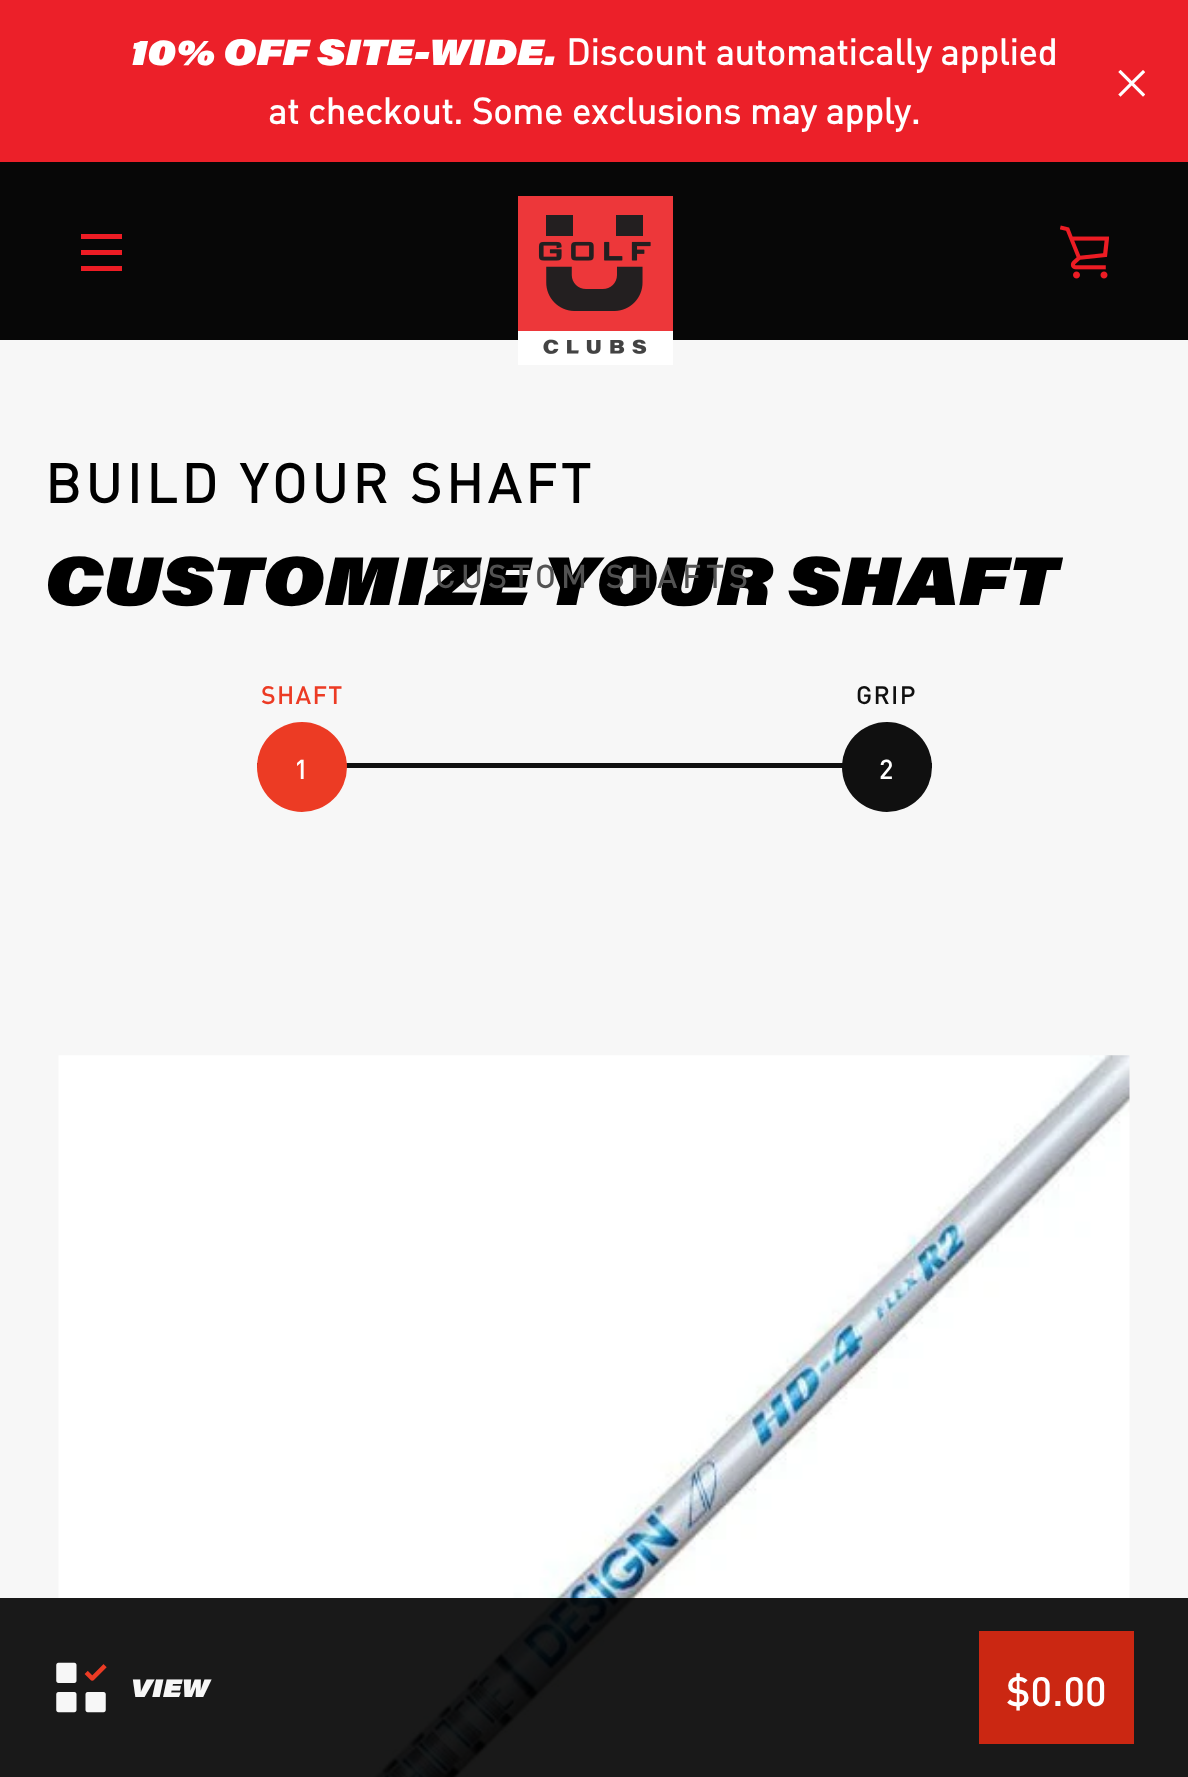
<svg xmlns="http://www.w3.org/2000/svg" width="1188" height="1777" viewBox="0 0 1188 1777">
  <rect width="100%" height="100%" fill="#f7f7f7"/>
  <rect x="0" y="162" width="1188" height="178" fill="#070707"/>
  <rect x="0" y="0" width="1188" height="162" fill="#ec2029"/>
  <text x="131" y="65" font-family="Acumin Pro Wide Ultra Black" font-size="36" font-weight="800" font-style="italic" fill="#ffffff">10% OFF SITE-WIDE.</text>
  <text x="566" y="65" font-family="Din" font-size="36" font-weight="bold" fill="#ffffff">Discount automatically applied</text>
  <text x="268" y="124" font-family="Din" font-size="36" font-weight="bold" fill="#ffffff">at checkout. Some exclusions may apply.</text>
  <image x="1118" y="70" width="27" height="27" href="img1.png"/>
  <image x="518" y="196" width="155" height="169" href="img2.png"/>
  <image x="1060" y="225" width="49" height="54" href="img3.png"/>
  <rect x="81" y="234" width="41" height="5" fill="#ed1c24"/>
  <rect x="81" y="250" width="41" height="5" fill="#ed1c24"/>
  <rect x="81" y="266" width="41" height="5" fill="#ed1c24"/>
  <text x="45" y="605" font-family="Acumin Pro Wide Ultra Black" font-size="67.5" font-weight="800" font-style="italic" fill="#000000">CUSTOMIZE YOUR SHAFT</text>
  <text x="435" y="588" font-family="Din" font-size="31.5" font-weight="bold" letter-spacing="5.6" fill="#525252">CUSTOM SHAFTS</text>
  <text x="45" y="503" font-family="Din" font-size="54" font-weight="bold" letter-spacing="4.3" fill="#000000">BUILD YOUR SHAFT</text>
  <text x="261" y="704" font-family="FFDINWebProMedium" font-size="25" letter-spacing="1.25" fill="#ec3b24">SHAFT</text>
  <rect x="257" y="763" width="675" height="5" fill="#101010"/>
  <circle cx="302" cy="767" r="45" fill="#ec3b24"/>
  <text x="294" y="779" font-family="FFDINWebProMedium" font-size="27" fill="#ffffff">1</text>
  <text x="856" y="704" font-family="FFDINWebProMedium" font-size="25" letter-spacing="1.25" fill="#101010">GRIP</text>
  <circle cx="887" cy="767" r="45" fill="#101010"/>
  <text x="879" y="779" font-family="FFDINWebProMedium" font-size="27" fill="#ffffff">2</text>
  <image x="58" y="1055" width="1072" height="722" href="img4.png"/>
  <rect x="0" y="1598" width="1188" height="179" fill="#000000" fill-opacity="0.9"/>
  <image x="56" y="1662" width="51" height="51" href="img5.png"/>
  <text x="131" y="1697" font-family="Acumin Pro Wide Ultra Black" font-size="25" font-weight="800" font-style="italic" fill="#f7f7f7">VIEW</text>
  <rect x="979" y="1631" width="155" height="113" fill="#cb2712"/>
  <text x="1006" y="1706" font-family="FFDINWebProMedium" font-size="40.5" fill="#ffffff">$0.00</text>
</svg>
